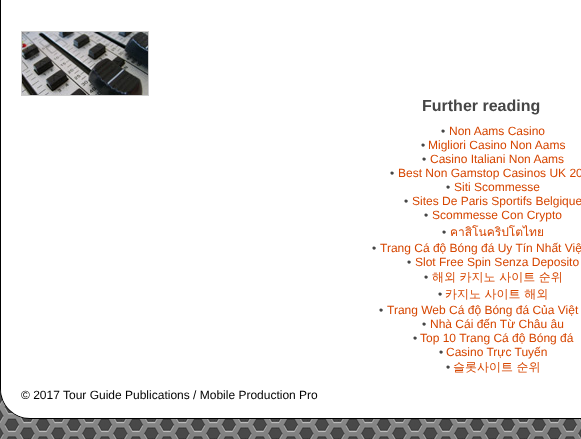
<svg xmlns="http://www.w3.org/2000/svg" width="581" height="439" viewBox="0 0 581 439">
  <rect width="100%" height="100%" fill="#ffffff"/>
  <image x="0" y="389" width="581" height="50" href="img1.png"/>
  <rect x="0.5" y="-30.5" width="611" height="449" rx="29.5" fill="none" stroke="#000000"/>
  <path d="M1-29H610V389C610 405 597 418 581 418H30C14 418 1 405 1 389Z" fill="#ffffff"/>
  <rect x="21.5" y="31.5" width="127" height="64" fill="none" stroke="#cccccc"/>
  <image x="22" y="32" width="126" height="63" href="img2.png"/>
  <text x="422" y="111" font-family="Liberation Sans" font-size="16" font-weight="bold" fill="#464646">Further reading</text>
  <text x="441" y="135" font-family="Liberation Sans" font-size="12" fill="#464646">•</text>
  <text x="449" y="135" font-family="Liberation Sans" font-size="12" fill="#d64600">Non Aams Casino</text>
  <text x="421" y="149" font-family="Liberation Sans" font-size="12" fill="#464646">•</text>
  <text x="428" y="149" font-family="Liberation Sans" font-size="12" fill="#d64600">Migliori Casino Non Aams</text>
  <text x="422" y="163" font-family="Liberation Sans" font-size="12" fill="#464646">•</text>
  <text x="430" y="163" font-family="Liberation Sans" font-size="12" fill="#d64600">Casino Italiani Non Aams</text>
  <text x="390" y="177" font-family="Liberation Sans" font-size="12" fill="#464646">•</text>
  <text x="398" y="177" font-family="Liberation Sans" font-size="12" fill="#d64600">Best Non Gamstop Casinos UK 20</text>
  <text x="446" y="191" font-family="Liberation Sans" font-size="12" fill="#464646">•</text>
  <text x="454" y="191" font-family="Liberation Sans" font-size="12" fill="#d64600">Siti Scommesse</text>
  <text x="404" y="205" font-family="Liberation Sans" font-size="12" fill="#464646">•</text>
  <text x="412" y="205" font-family="Liberation Sans" font-size="12" fill="#d64600">Sites De Paris Sportifs Belgique</text>
  <text x="424" y="219" font-family="Liberation Sans" font-size="12" fill="#464646">•</text>
  <text x="432" y="219" font-family="Liberation Sans" font-size="12" fill="#d64600">Scommesse Con Crypto</text>
  <text x="442" y="236" font-family="Liberation Sans" font-size="12" fill="#464646">•</text>
  <text x="450" y="236" font-family="Loma" font-size="12" fill="#d64600">คาสิโนคริปโตไทย</text>
  <text x="372" y="252" font-family="Liberation Sans" font-size="12" fill="#464646">•</text>
  <text x="380" y="252" font-family="Liberation Sans" font-size="12" fill="#d64600">Trang Cá độ Bóng đá Uy Tín Nhất Việ</text>
  <text x="407" y="266" font-family="Liberation Sans" font-size="12" fill="#464646">•</text>
  <text x="415" y="266" font-family="Liberation Sans" font-size="12" fill="#d64600">Slot Free Spin Senza Deposito</text>
  <text x="424" y="281" font-family="Liberation Sans" font-size="12" fill="#464646">•</text>
  <text x="432" y="281" font-family="WenQuanYi Zen Hei" font-size="12" font-weight="500" fill="#d64600">해외 카지노 사이트 순위</text>
  <text x="438" y="298" font-family="Liberation Sans" font-size="12" fill="#464646">•</text>
  <text x="445" y="298" font-family="WenQuanYi Zen Hei" font-size="12" font-weight="500" fill="#d64600">카지노 사이트 해외</text>
  <text x="379" y="314" font-family="Liberation Sans" font-size="12" fill="#464646">•</text>
  <text x="387" y="314" font-family="Liberation Sans" font-size="12" fill="#d64600">Trang Web Cá độ Bóng đá Của Việt</text>
  <text x="422" y="328" font-family="Liberation Sans" font-size="12" fill="#464646">•</text>
  <text x="430" y="328" font-family="Liberation Sans" font-size="12" fill="#d64600">Nhà Cái đến Từ Châu âu</text>
  <text x="413" y="342" font-family="Liberation Sans" font-size="12" fill="#464646">•</text>
  <text x="420" y="342" font-family="Liberation Sans" font-size="12" fill="#d64600">Top 10 Trang Cá độ Bóng đá</text>
  <text x="439" y="356" font-family="Liberation Sans" font-size="12" fill="#464646">•</text>
  <text x="446" y="356" font-family="Liberation Sans" font-size="12" fill="#d64600">Casino Trực Tuyến</text>
  <text x="446" y="371" font-family="Liberation Sans" font-size="12" fill="#464646">•</text>
  <text x="453" y="371" font-family="WenQuanYi Zen Hei" font-size="12" font-weight="500" fill="#d64600">슬롯사이트 순위</text>
  <text x="21" y="399" font-family="Liberation Sans" font-size="12" fill="#000000">© 2017 Tour Guide Publications / Mobile Production Pro</text>
</svg>
